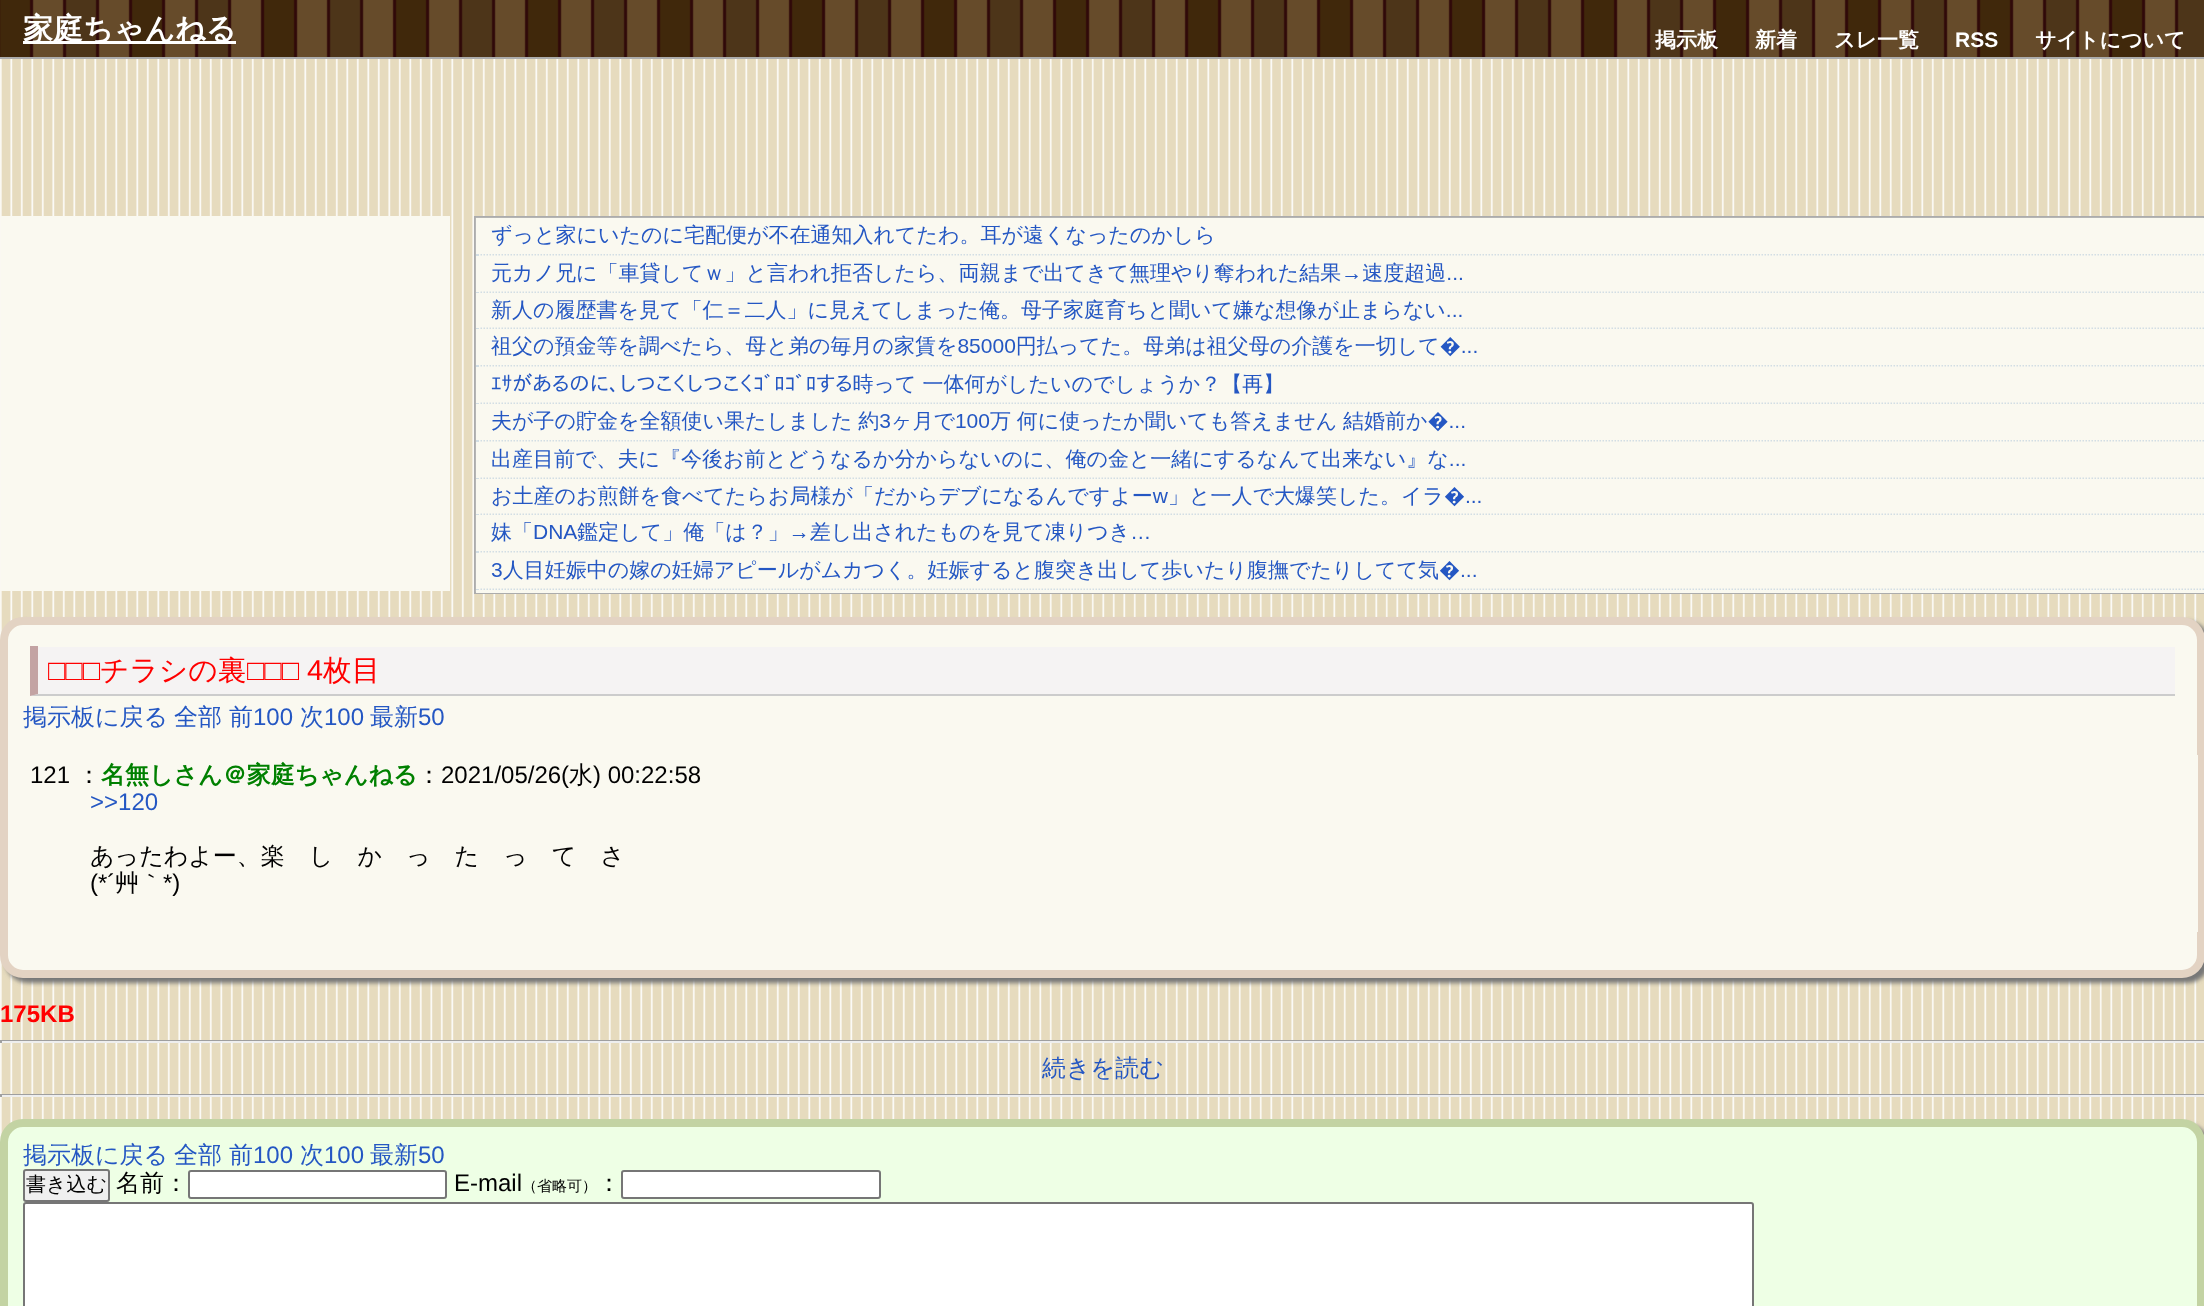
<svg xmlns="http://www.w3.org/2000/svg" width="2204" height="1306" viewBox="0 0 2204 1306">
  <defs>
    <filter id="blur1" x="-50%" y="-200%" width="200%" height="500%"><feGaussianBlur stdDeviation="2"/></filter>
  </defs>
  <rect width="100%" height="100%" fill="#ffffff"/>
  <image x="0" y="59" width="2204" height="1083" href="img1.png"/>
  <image x="0" y="0" width="2204" height="57" href="img2.png"/>
  <rect x="0" y="57" width="2204" height="2" fill="#acacac"/>
  <rect x="23" y="41" width="213" height="3" fill="#ffffff"/>
  <text x="23" y="39" font-family="WenQuanYi Zen Hei" font-size="30" font-weight="bold" fill="#ffffff">家庭ちゃんねる</text>
  <text x="1655" y="47" font-family="WenQuanYi Zen Hei" font-size="21" font-weight="bold" fill="#ffffff">掲示板</text>
  <text x="1755" y="47" font-family="WenQuanYi Zen Hei" font-size="21" font-weight="bold" fill="#ffffff">新着</text>
  <text x="1834" y="47" font-family="WenQuanYi Zen Hei" font-size="21" font-weight="bold" fill="#ffffff">スレ一覧</text>
  <text x="1955" y="47" font-family="Liberation Sans" font-size="21" font-weight="bold" fill="#ffffff">RSS</text>
  <text x="2035" y="47" font-family="WenQuanYi Zen Hei" font-size="21" font-weight="bold" fill="#ffffff">サイトについて</text>
  <rect x="1" y="216" width="449" height="375" fill="#faf9f0"/>
  <rect x="475" y="217" width="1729" height="376" fill="none" stroke="#acacac" stroke-width="2"/>
  <image x="475" y="217" width="1729" height="376" href="img3.png"/>
  <rect x="5" y="621" width="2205" height="362" rx="23" fill="#777777" filter="url(#blur1)"/>
  <rect x="4" y="621" width="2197" height="353" rx="19" fill="#faf9f0" stroke="#e3d3c3" stroke-width="8"/>
  <rect x="30" y="647" width="2145" height="49" fill="#f5f3f3"/>
  <path d="M2175 696H30L38 694H2175Z" fill="#cccccc"/>
  <path d="M30 696V646H38V694Z" fill="#c3a3a3"/>
  <text x="48" y="680" font-family="Liberation Sans" font-size="28.75" fill="#ff0000">□□□</text>
  <text x="100" y="680" font-family="WenQuanYi Zen Hei" font-size="28.75" font-weight="500" fill="#ff0000">チラシの裏</text>
  <text x="247" y="680" font-family="Liberation Sans" font-size="28.75" fill="#ff0000">□□□ 4</text>
  <text x="323" y="680" font-family="WenQuanYi Zen Hei" font-size="28.75" font-weight="500" fill="#ff0000">枚目</text>
  <text x="23" y="725" font-family="WenQuanYi Zen Hei" font-size="24" font-weight="500" fill="#2457c3">掲示板に戻る</text>
  <text x="174" y="725" font-family="WenQuanYi Zen Hei" font-size="24" font-weight="500" fill="#2457c3">全部</text>
  <text x="229" y="725" font-family="WenQuanYi Zen Hei" font-size="24" font-weight="500" fill="#2457c3">前</text>
  <text x="253" y="725" font-family="Liberation Sans" font-size="24" fill="#2457c3">100</text>
  <text x="300" y="725" font-family="WenQuanYi Zen Hei" font-size="24" font-weight="500" fill="#2457c3">次</text>
  <text x="324" y="725" font-family="Liberation Sans" font-size="24" fill="#2457c3">100</text>
  <text x="370" y="725" font-family="WenQuanYi Zen Hei" font-size="24" font-weight="500" fill="#2457c3">最新</text>
  <text x="418" y="725" font-family="Liberation Sans" font-size="24" fill="#2457c3">50</text>
  <rect x="2197" y="755" width="1" height="177" fill="#faf9f0"/>
  <text x="30" y="783" font-family="Liberation Sans" font-size="24" fill="#000000">121</text>
  <text x="77" y="783" font-family="WenQuanYi Zen Hei" font-size="24" font-weight="500" fill="#000000">：</text>
  <text x="101" y="783" font-family="WenQuanYi Zen Hei" font-size="24" font-weight="bold" fill="#008000">名無しさん＠家庭ちゃんねる</text>
  <text x="417" y="783" font-family="WenQuanYi Zen Hei" font-size="24" font-weight="500" fill="#000000">：</text>
  <text x="441" y="783" font-family="Liberation Sans" font-size="24" fill="#000000">2021/05/26(</text>
  <text x="569" y="783" font-family="WenQuanYi Zen Hei" font-size="24" font-weight="500" fill="#000000">水</text>
  <text x="593" y="783" font-family="Liberation Sans" font-size="24" fill="#000000">) 00:22:58</text>
  <text x="90" y="810" font-family="Liberation Sans" font-size="24" fill="#2457c3">&gt;&gt;120</text>
  <text x="90" y="864" font-family="WenQuanYi Zen Hei" font-size="24" font-weight="500" fill="#000000">あったわよー、楽　し　か　っ　た　っ　て　さ</text>
  <text x="90" y="891" font-family="Liberation Sans" font-size="24" fill="#000000">(*´</text>
  <text x="115" y="891" font-family="WenQuanYi Zen Hei" font-size="24" font-weight="500" fill="#000000">艸｀</text>
  <text x="163" y="891" font-family="Liberation Sans" font-size="24" fill="#000000">*)</text>
  <text x="0" y="1022" font-family="Liberation Sans" font-size="24" font-weight="bold" fill="#ff0000">175KB</text>
  <rect x="0" y="1040" width="2204" height="1" fill="#9f9f9f"/>
  <rect x="0" y="1041" width="2204" height="2" fill="#eeeeee"/>
  <rect x="0" y="1040" width="2" height="3" fill="#9f9f9f"/>
  <text x="1042" y="1076" font-family="WenQuanYi Zen Hei" font-size="24" font-weight="500" fill="#2457c3">続きを読む</text>
  <rect x="0" y="1094" width="2204" height="1" fill="#9f9f9f"/>
  <rect x="0" y="1095" width="2204" height="2" fill="#eeeeee"/>
  <rect x="0" y="1094" width="2" height="3" fill="#9f9f9f"/>
  <rect x="5" y="1124" width="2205" height="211" rx="23" fill="#777777" filter="url(#blur1)"/>
  <rect x="4" y="1123" width="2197" height="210" rx="19" fill="#eeffe5" stroke="#c3d3a3" stroke-width="8"/>
  <text x="23" y="1163" font-family="WenQuanYi Zen Hei" font-size="24" font-weight="500" fill="#2457c3">掲示板に戻る</text>
  <text x="174" y="1163" font-family="WenQuanYi Zen Hei" font-size="24" font-weight="500" fill="#2457c3">全部</text>
  <text x="229" y="1163" font-family="WenQuanYi Zen Hei" font-size="24" font-weight="500" fill="#2457c3">前</text>
  <text x="253" y="1163" font-family="Liberation Sans" font-size="24" fill="#2457c3">100</text>
  <text x="300" y="1163" font-family="WenQuanYi Zen Hei" font-size="24" font-weight="500" fill="#2457c3">次</text>
  <text x="324" y="1163" font-family="Liberation Sans" font-size="24" fill="#2457c3">100</text>
  <text x="370" y="1163" font-family="WenQuanYi Zen Hei" font-size="24" font-weight="500" fill="#2457c3">最新</text>
  <text x="418" y="1163" font-family="Liberation Sans" font-size="24" fill="#2457c3">50</text>
  <rect x="24" y="1170" width="85" height="31" rx="2" fill="#efefef" stroke="#767676" stroke-width="2"/>
  <text x="26" y="1191" font-family="WenQuanYi Zen Hei" font-size="20" font-weight="500" fill="#000000">書き込む</text>
  <text x="116" y="1191" font-family="WenQuanYi Zen Hei" font-size="24" font-weight="500" fill="#000000">名前：</text>
  <rect x="189" y="1171" width="257" height="27" rx="2" fill="#ffffff" stroke="#767676" stroke-width="2"/>
  <text x="454" y="1191" font-family="Liberation Sans" font-size="24" fill="#000000">E-mail</text>
  <text x="522" y="1191" font-family="WenQuanYi Zen Hei" font-size="15" font-weight="500" fill="#000000">（省略可）</text>
  <text x="597" y="1191" font-family="WenQuanYi Zen Hei" font-size="24" font-weight="500" fill="#000000">：</text>
  <rect x="622" y="1171" width="258" height="27" rx="2" fill="#ffffff" stroke="#767676" stroke-width="2"/>
  <rect x="24" y="1203" width="1729" height="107" rx="2" fill="#ffffff" stroke="#767676" stroke-width="2"/>
</svg>
